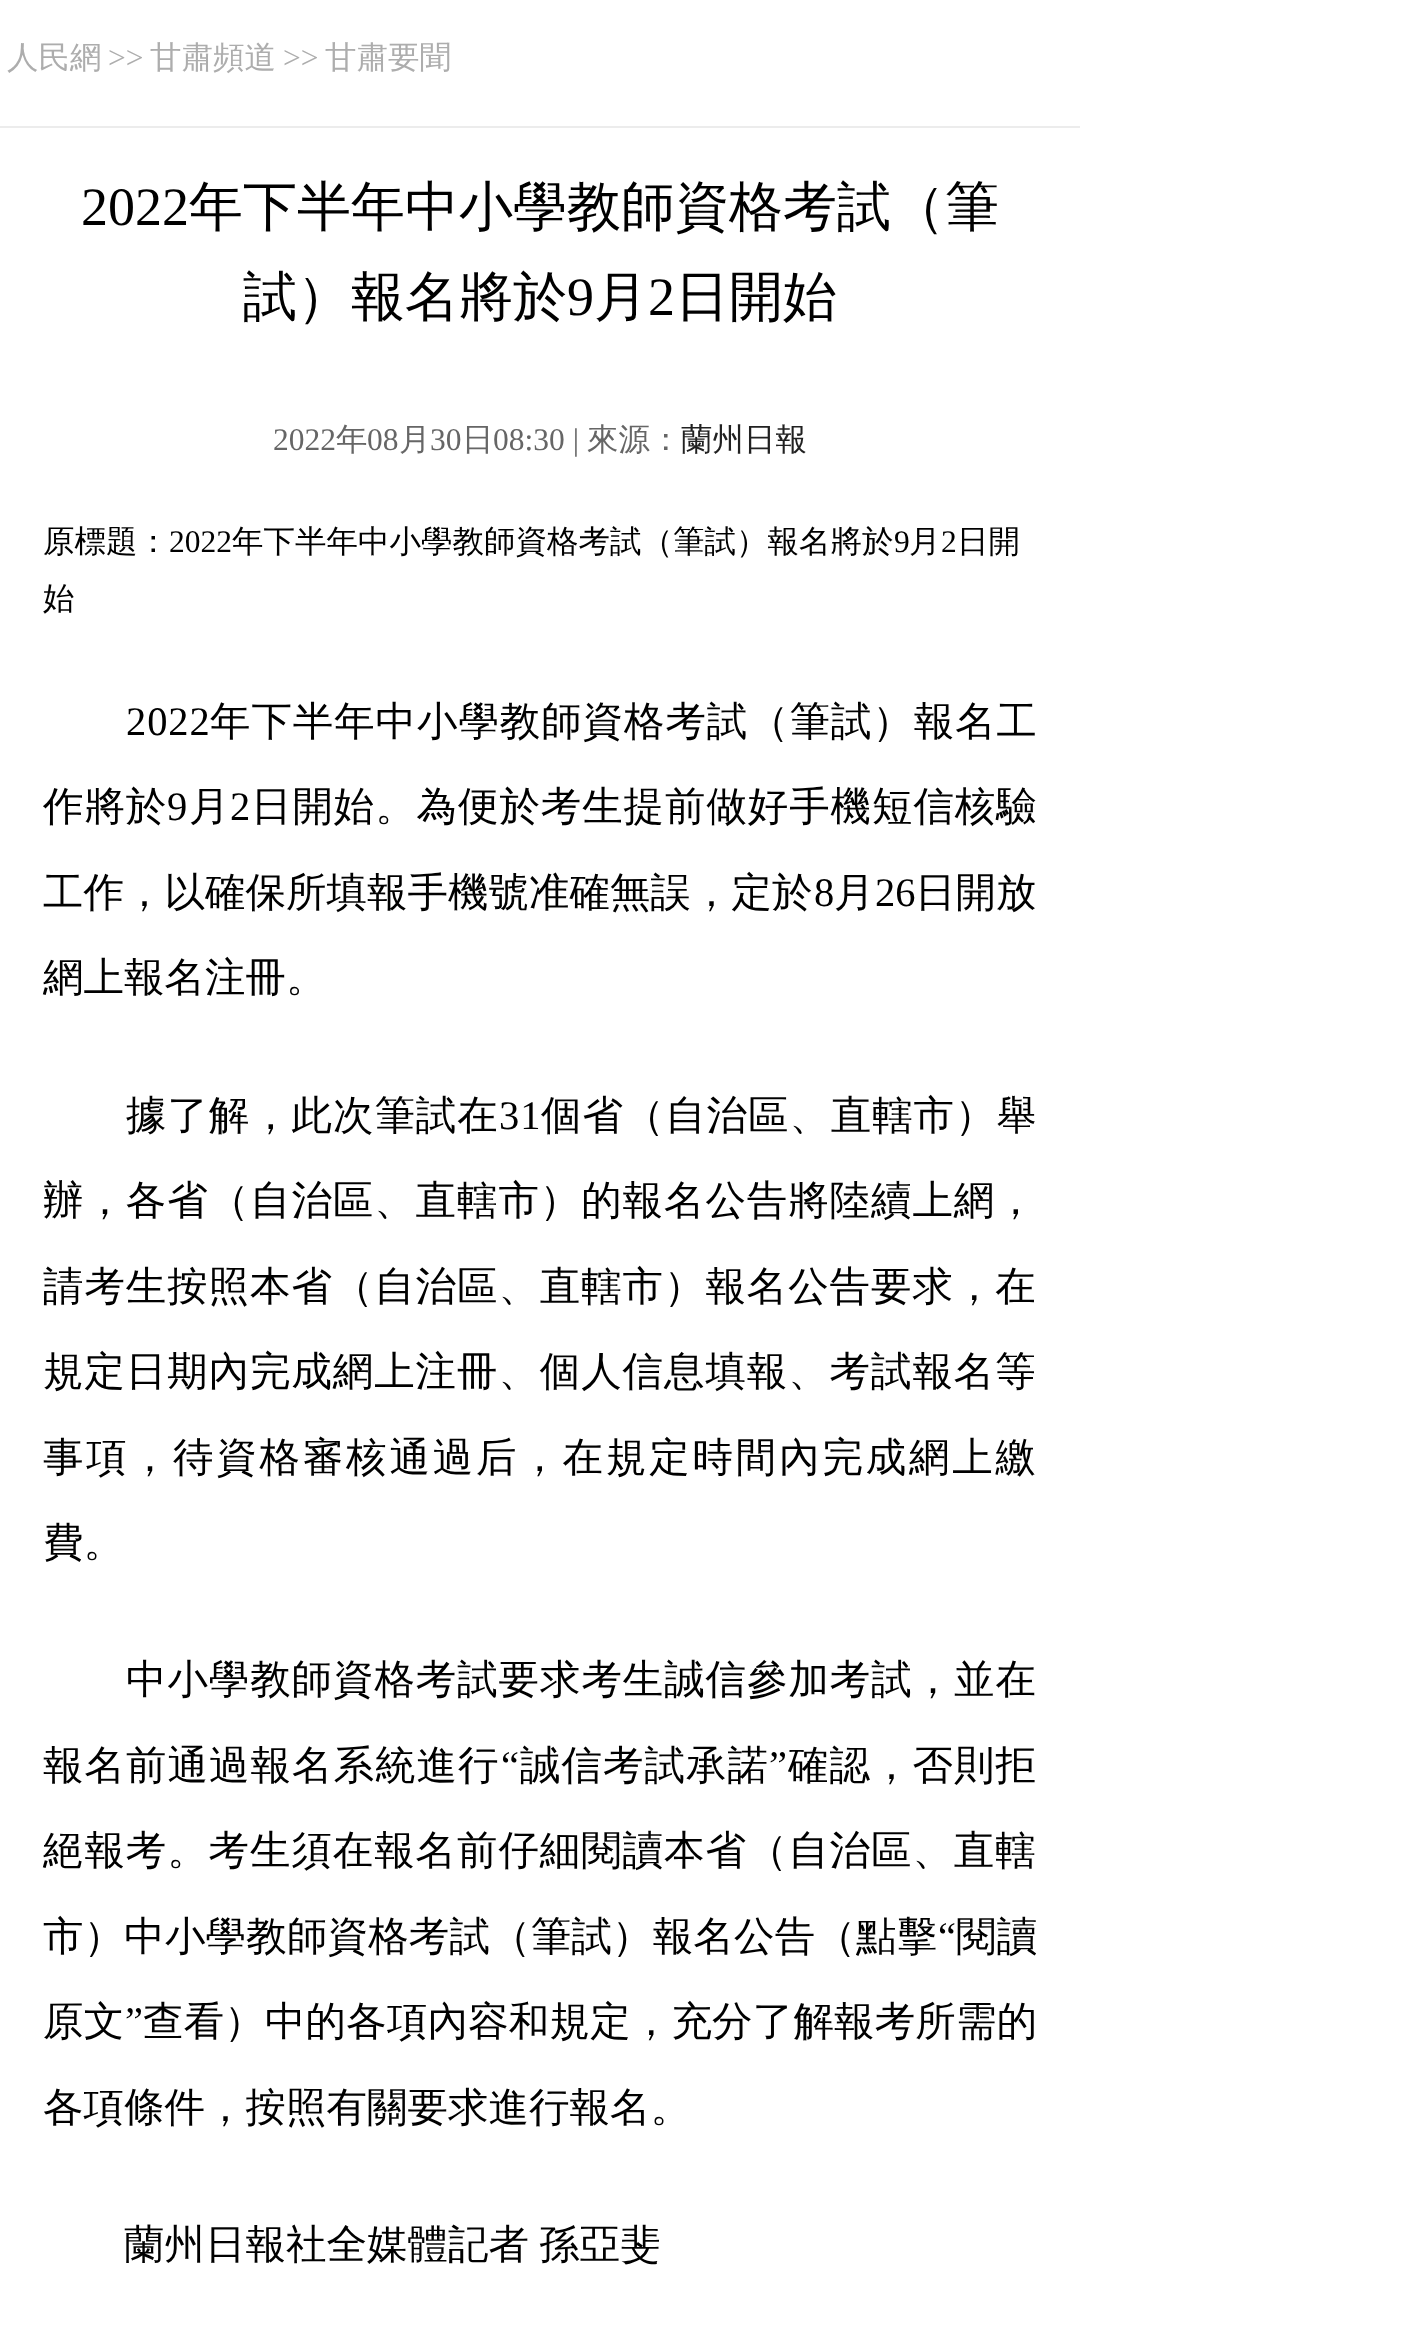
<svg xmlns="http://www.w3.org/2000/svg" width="1421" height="2331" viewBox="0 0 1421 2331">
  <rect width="100%" height="100%" fill="#ffffff"/>
  <rect x="0" y="126" width="1080" height="2" fill="#ececec"/>
  <text x="7" y="68" font-family="WenQuanYi Zen Hei" font-size="31.5" font-weight="500" fill="#adadad">人民網</text>
  <text x="108" y="68" font-family="Liberation Serif" font-size="31.5" fill="#adadad">&gt;&gt;</text>
  <text x="150" y="68" font-family="WenQuanYi Zen Hei" font-size="31.5" font-weight="500" fill="#adadad">甘肅頻道</text>
  <text x="283" y="68" font-family="Liberation Serif" font-size="31.5" fill="#adadad">&gt;&gt;</text>
  <text x="325" y="68" font-family="WenQuanYi Zen Hei" font-size="31.5" font-weight="500" fill="#adadad">甘肅要聞</text>
  <text x="81" y="225" font-family="Liberation Serif" font-size="54" fill="#000000">2022</text>
  <text x="189" y="225" font-family="WenQuanYi Zen Hei" font-size="54" font-weight="500" fill="#000000">年下半年中小學教師資格考試（筆</text>
  <text x="243" y="315" font-family="WenQuanYi Zen Hei" font-size="54" font-weight="500" fill="#000000">試）報名將於</text>
  <text x="567" y="315" font-family="Liberation Serif" font-size="54" fill="#000000">9</text>
  <text x="594" y="315" font-family="WenQuanYi Zen Hei" font-size="54" font-weight="500" fill="#000000">月</text>
  <text x="648" y="315" font-family="Liberation Serif" font-size="54" fill="#000000">2</text>
  <text x="675" y="315" font-family="WenQuanYi Zen Hei" font-size="54" font-weight="500" fill="#000000">日開始</text>
  <text x="273" y="450" font-family="Liberation Serif" font-size="31.5" fill="#666666">2022</text>
  <text x="336" y="450" font-family="WenQuanYi Zen Hei" font-size="31.5" font-weight="500" fill="#666666">年</text>
  <text x="367" y="450" font-family="Liberation Serif" font-size="31.5" fill="#666666">08</text>
  <text x="399" y="450" font-family="WenQuanYi Zen Hei" font-size="31.5" font-weight="500" fill="#666666">月</text>
  <text x="430" y="450" font-family="Liberation Serif" font-size="31.5" fill="#666666">30</text>
  <text x="462" y="450" font-family="WenQuanYi Zen Hei" font-size="31.5" font-weight="500" fill="#666666">日</text>
  <text x="493" y="450" font-family="Liberation Serif" font-size="31.5" fill="#666666">08:30 |</text>
  <text x="587" y="450" font-family="WenQuanYi Zen Hei" font-size="31.5" font-weight="500" fill="#666666">來源：</text>
  <text x="681" y="450" font-family="WenQuanYi Zen Hei" font-size="31.5" font-weight="500" fill="#212121">蘭州日報</text>
  <text x="43" y="552" font-family="WenQuanYi Zen Hei" font-size="31.5" font-weight="500" fill="#000000">原標題：</text>
  <text x="169" y="552" font-family="Liberation Serif" font-size="31.5" fill="#000000">2022</text>
  <text x="232" y="552" font-family="WenQuanYi Zen Hei" font-size="31.5" font-weight="500" fill="#000000">年下半年中小學教師資格考試（筆試）報名將於</text>
  <text x="894" y="552" font-family="Liberation Serif" font-size="31.5" fill="#000000">9</text>
  <text x="909" y="552" font-family="WenQuanYi Zen Hei" font-size="31.5" font-weight="500" fill="#000000">月</text>
  <text x="941" y="552" font-family="Liberation Serif" font-size="31.5" fill="#000000">2</text>
  <text x="957" y="552" font-family="WenQuanYi Zen Hei" font-size="31.5" font-weight="500" fill="#000000">日開</text>
  <text x="43" y="609" font-family="WenQuanYi Zen Hei" font-size="31.5" font-weight="500" fill="#000000">始</text>
  <text x="126" y="735" font-family="Liberation Serif" font-size="40.5" letter-spacing="0.9" fill="#000000">2022</text>
  <text x="210" y="735" font-family="WenQuanYi Zen Hei" font-size="40.5" font-weight="500" letter-spacing="0.9" fill="#000000">年下半年中小學教師資格考試（筆試）報名工</text>
  <text x="43" y="820" font-family="WenQuanYi Zen Hei" font-size="40.5" font-weight="500" letter-spacing="0.9" fill="#000000">作將於</text>
  <text x="167" y="820" font-family="Liberation Serif" font-size="40.5" letter-spacing="0.9" fill="#000000">9</text>
  <text x="189" y="820" font-family="WenQuanYi Zen Hei" font-size="40.5" font-weight="500" letter-spacing="0.9" fill="#000000">月</text>
  <text x="230" y="820" font-family="Liberation Serif" font-size="40.5" letter-spacing="0.9" fill="#000000">2</text>
  <text x="251" y="820" font-family="WenQuanYi Zen Hei" font-size="40.5" font-weight="500" letter-spacing="0.9" fill="#000000">日開始。為便於考生提前做好手機短信核驗</text>
  <text x="43" y="906" font-family="WenQuanYi Zen Hei" font-size="40.5" font-weight="500" fill="#000000">工作，以確保所填報手機號准確無誤，定於</text>
  <text x="814" y="906" font-family="Liberation Serif" font-size="40.5" fill="#000000">8</text>
  <text x="834" y="906" font-family="WenQuanYi Zen Hei" font-size="40.5" font-weight="500" fill="#000000">月</text>
  <text x="875" y="906" font-family="Liberation Serif" font-size="40.5" fill="#000000">26</text>
  <text x="915" y="906" font-family="WenQuanYi Zen Hei" font-size="40.5" font-weight="500" fill="#000000">日開放</text>
  <text x="43" y="991" font-family="WenQuanYi Zen Hei" font-size="40.5" font-weight="500" fill="#000000">網上報名注冊。</text>
  <text x="126" y="1129" font-family="WenQuanYi Zen Hei" font-size="40.5" font-weight="500" letter-spacing="0.9" fill="#000000">據了解，此次筆試在</text>
  <text x="499" y="1129" font-family="Liberation Serif" font-size="40.5" letter-spacing="0.9" fill="#000000">31</text>
  <text x="541" y="1129" font-family="WenQuanYi Zen Hei" font-size="40.5" font-weight="500" letter-spacing="0.9" fill="#000000">個省（自治區、直轄市）舉</text>
  <text x="43" y="1214" font-family="WenQuanYi Zen Hei" font-size="40.5" font-weight="500" letter-spacing="0.9" fill="#000000">辦，各省（自治區、直轄市）的報名公告將陸續上網，</text>
  <text x="43" y="1300" font-family="WenQuanYi Zen Hei" font-size="40.5" font-weight="500" letter-spacing="0.9" fill="#000000">請考生按照本省（自治區、直轄市）報名公告要求，在</text>
  <text x="43" y="1385" font-family="WenQuanYi Zen Hei" font-size="40.5" font-weight="500" letter-spacing="0.9" fill="#000000">規定日期內完成網上注冊、個人信息填報、考試報名等</text>
  <text x="43" y="1471" font-family="WenQuanYi Zen Hei" font-size="40.5" font-weight="500" letter-spacing="2.8" fill="#000000">事項，待資格審核通過后，在規定時間內完成網上繳</text>
  <text x="43" y="1556" font-family="WenQuanYi Zen Hei" font-size="40.5" font-weight="500" fill="#000000">費。</text>
  <text x="126" y="1693" font-family="WenQuanYi Zen Hei" font-size="40.5" font-weight="500" letter-spacing="0.9" fill="#000000">中小學教師資格考試要求考生誠信參加考試，並在</text>
  <text x="43" y="1779" font-family="WenQuanYi Zen Hei" font-size="40.5" font-weight="500" letter-spacing="1" fill="#000000">報名前通過報名系統進行</text>
  <text x="501" y="1779" font-family="Liberation Serif" font-size="40.5" letter-spacing="1" fill="#000000">“</text>
  <text x="520" y="1779" font-family="WenQuanYi Zen Hei" font-size="40.5" font-weight="500" letter-spacing="1" fill="#000000">誠信考試承諾</text>
  <text x="769" y="1779" font-family="Liberation Serif" font-size="40.5" letter-spacing="1" fill="#000000">”</text>
  <text x="788" y="1779" font-family="WenQuanYi Zen Hei" font-size="40.5" font-weight="500" letter-spacing="1" fill="#000000">確認，否則拒</text>
  <text x="43" y="1864" font-family="WenQuanYi Zen Hei" font-size="40.5" font-weight="500" letter-spacing="0.9" fill="#000000">絕報考。考生須在報名前仔細閱讀本省（自治區、直轄</text>
  <text x="43" y="1950" font-family="WenQuanYi Zen Hei" font-size="40.5" font-weight="500" letter-spacing="0.15" fill="#000000">市）中小學教師資格考試（筆試）報名公告（點擊</text>
  <text x="938" y="1950" font-family="Liberation Serif" font-size="40.5" letter-spacing="0.15" fill="#000000">“</text>
  <text x="956" y="1950" font-family="WenQuanYi Zen Hei" font-size="40.5" font-weight="500" letter-spacing="0.15" fill="#000000">閱讀</text>
  <text x="43" y="2035" font-family="WenQuanYi Zen Hei" font-size="40.5" font-weight="500" letter-spacing="0.15" fill="#000000">原文</text>
  <text x="125" y="2035" font-family="Liberation Serif" font-size="40.5" letter-spacing="0.15" fill="#000000">”</text>
  <text x="143" y="2035" font-family="WenQuanYi Zen Hei" font-size="40.5" font-weight="500" letter-spacing="0.15" fill="#000000">查看）中的各項內容和規定，充分了解報考所需的</text>
  <text x="43" y="2121" font-family="WenQuanYi Zen Hei" font-size="40.5" font-weight="500" fill="#000000">各項條件，按照有關要求進行報名。</text>
  <text x="124" y="2258" word-spacing="-2" font-family="WenQuanYi Zen Hei" font-size="40.5" font-weight="500" fill="#000000">蘭州日報社全媒體記者 孫亞斐</text>
</svg>
